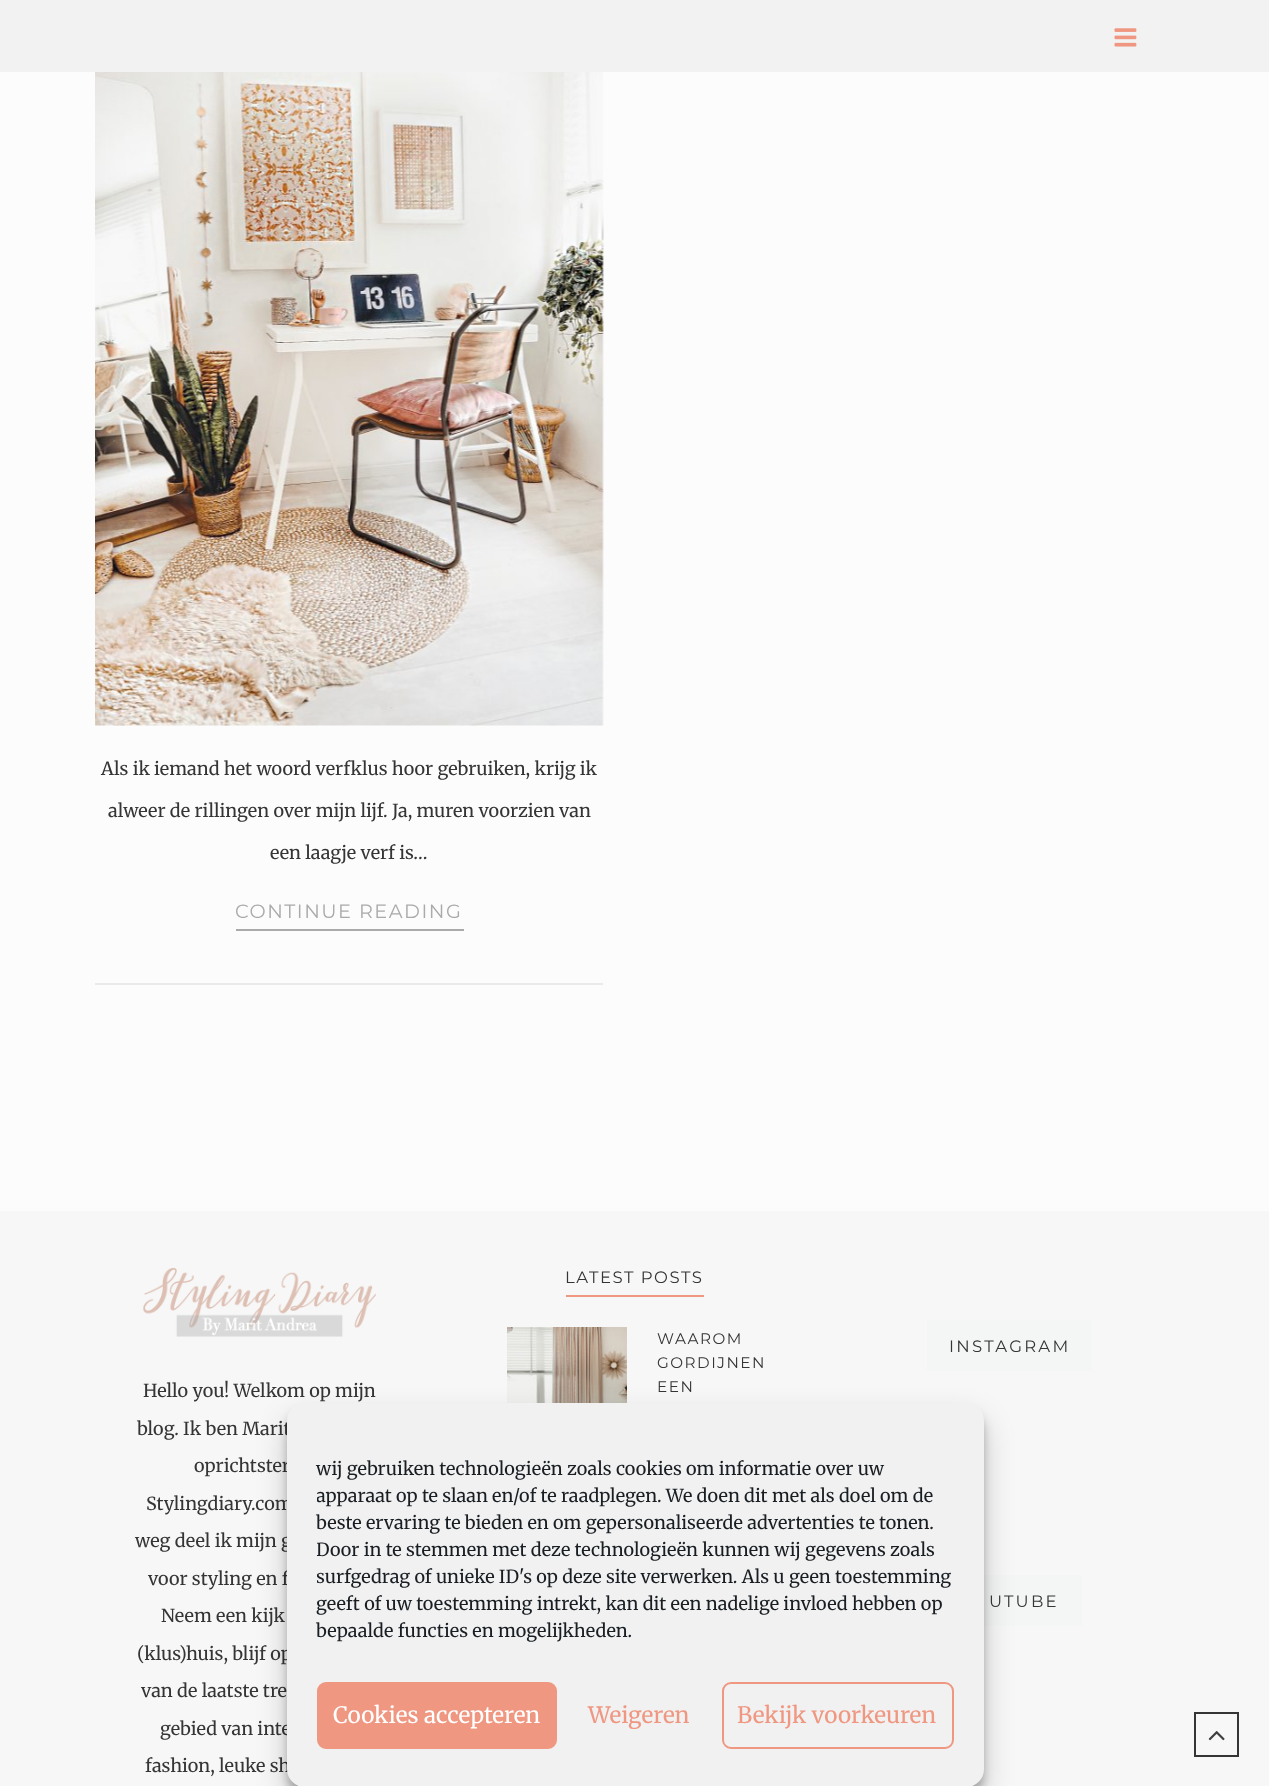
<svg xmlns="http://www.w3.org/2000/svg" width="1269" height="1786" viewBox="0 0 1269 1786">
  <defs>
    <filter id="blur1" x="-50%" y="-200%" width="200%" height="500%"><feGaussianBlur stdDeviation="4.5"/></filter>
    <filter id="blur2" x="-50%" y="-200%" width="200%" height="500%"><feGaussianBlur stdDeviation="15"/></filter>
    <clipPath id="clip1"><rect x="317" y="1455" width="637" height="197"/></clipPath>
  </defs>
  <rect width="100%" height="100%" fill="#fcfcfc"/>
  <rect x="0" y="0" width="1269" height="72" fill="#f2f2f2"/>
  <image x="1114" y="28" width="23" height="19" href="img1.png"/>
  <rect x="95" y="983" width="508" height="2" fill="#eaeaea"/>
  <image x="95" y="72" width="509" height="654" href="img2.png"/>
  <text x="101" y="775" font-family="Merriweather" font-size="18" fill="#353535">Als ik iemand het woord verfklus hoor gebruiken, krijg ik</text>
  <text x="108" y="817" font-family="Merriweather" font-size="18" fill="#353535">alweer de rillingen over mijn lijf. Ja, muren voorzien van</text>
  <text x="270" y="859" font-family="Merriweather" font-size="18" fill="#353535">een laagje verf is…</text>
  <rect x="236" y="929" width="228" height="2" fill="#aaaaaa"/>
  <text x="235" y="918" font-family="Montserrat" font-size="19.25" letter-spacing="1.5" fill="#aaaaaa">CONTINUE READING</text>
  <rect x="0" y="1211" width="1269" height="575" fill="#f7f7f7"/>
  <image x="143" y="1267" width="233" height="70" href="img3.png"/>
  <text x="143" y="1397" font-family="Merriweather" font-size="18" fill="#353535">Hello you! Welkom op mijn</text>
  <text x="137" y="1435" font-family="Merriweather" font-size="18" fill="#353535">blog. Ik ben Marit</text>
  <text x="194" y="1472" font-family="Merriweather" font-size="18" fill="#353535">oprichtster</text>
  <text x="146" y="1510" font-family="Merriweather" font-size="18" fill="#353535">Stylingdiary.com</text>
  <text x="135" y="1547" font-family="Merriweather" font-size="18" fill="#353535">weg deel ik mijn g</text>
  <text x="148" y="1585" font-family="Merriweather" font-size="18" fill="#353535">voor styling en f</text>
  <text x="161" y="1622" font-family="Merriweather" font-size="18" fill="#353535">Neem een kijk</text>
  <text x="137" y="1660" font-family="Merriweather" font-size="18" fill="#353535">(klus)huis, blijf op</text>
  <text x="141" y="1697" font-family="Merriweather" font-size="18" fill="#353535">van de laatste tre</text>
  <text x="160" y="1735" font-family="Merriweather" font-size="18" fill="#353535">gebied van inte</text>
  <text x="145" y="1772" font-family="Merriweather" font-size="18" fill="#353535">fashion, leuke sh</text>
  <text x="565" y="1283" font-family="Montserrat" font-size="16.5" letter-spacing="1.5" fill="#353535">LATEST POSTS</text>
  <rect x="566" y="1295" width="138" height="2" fill="#ef9781"/>
  <image x="507" y="1327" width="120" height="76" href="img4.png"/>
  <text x="657" y="1344" font-family="Montserrat" font-size="15.25" letter-spacing="1.5" fill="#353535">WAAROM</text>
  <text x="657" y="1368" font-family="Montserrat" font-size="15.25" letter-spacing="1.5" fill="#353535">GORDIJNEN</text>
  <text x="657" y="1392" font-family="Montserrat" font-size="15.25" letter-spacing="1.5" fill="#353535">EEN</text>
  <rect x="927" y="1320" width="165" height="51" fill="#f4f5f5"/>
  <text x="949" y="1352" font-family="Montserrat" font-size="16.5" letter-spacing="2.25" fill="#353535">INSTAGRAM</text>
  <rect x="984" y="1575" width="98" height="51" fill="#f4f5f5"/>
  <text x="989" y="1607" font-family="Montserrat" font-size="16.5" letter-spacing="2.25" fill="#353535">UTUBE</text>
  <rect x="287" y="1412" width="697" height="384" rx="18" fill="#000000" fill-opacity="0.23" filter="url(#blur1)"/>
  <rect x="287" y="1418" width="697" height="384" rx="18" fill="#000000" fill-opacity="0.19" filter="url(#blur2)"/>
  <rect x="287" y="1403" width="697" height="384" rx="18" fill="#f1f1f1"/>
  <text x="316" y="1475" font-family="Merriweather" font-size="18" fill="#191e23">wij gebruiken technologieën zoals cookies om informatie over uw</text>
  <g clip-path="url(#clip1)">
    <text x="316" y="1502" font-family="Merriweather" font-size="18" fill="#191e23">apparaat op te slaan en/of te raadplegen. We doen dit met als doel om de</text>
  </g>
  <text x="316" y="1529" font-family="Merriweather" font-size="18" fill="#191e23">beste ervaring te bieden en om gepersonaliseerde advertenties te tonen.</text>
  <g clip-path="url(#clip1)">
    <text x="316" y="1556" font-family="Merriweather" font-size="18" fill="#191e23">Door in te stemmen met deze technologieën kunnen wij gegevens zoals</text>
    <text x="316" y="1583" font-family="Merriweather" font-size="18" fill="#191e23">surfgedrag of unieke ID's op deze site verwerken. Als u geen toestemming</text>
  </g>
  <text x="316" y="1610" font-family="Merriweather" font-size="18" fill="#191e23">geeft of uw toestemming intrekt, kan dit een nadelige invloed hebben op</text>
  <text x="316" y="1637" font-family="Merriweather" font-size="18" fill="#191e23">bepaalde functies en mogelijkheden.</text>
  <rect x="318" y="1683" width="238" height="65" rx="8" fill="#ef9781" stroke="#ef9781" stroke-width="2"/>
  <text x="333" y="1723" font-family="Merriweather" font-size="22.5" fill="#ffffff">Cookies accepteren</text>
  <text x="588" y="1723" font-family="Merriweather" font-size="22.5" fill="#ef9781">Weigeren</text>
  <rect x="723" y="1683" width="230" height="65" rx="8" fill="none" stroke="#ef9781" stroke-width="2"/>
  <text x="737" y="1723" font-family="Merriweather" font-size="22.5" fill="#ef9781">Bekijk voorkeuren</text>
  <rect x="1195" y="1713" width="43" height="43" fill="none" stroke="#353535" stroke-width="2"/>
  <image x="1208" y="1731" width="17" height="10" href="img5.png"/>
</svg>
